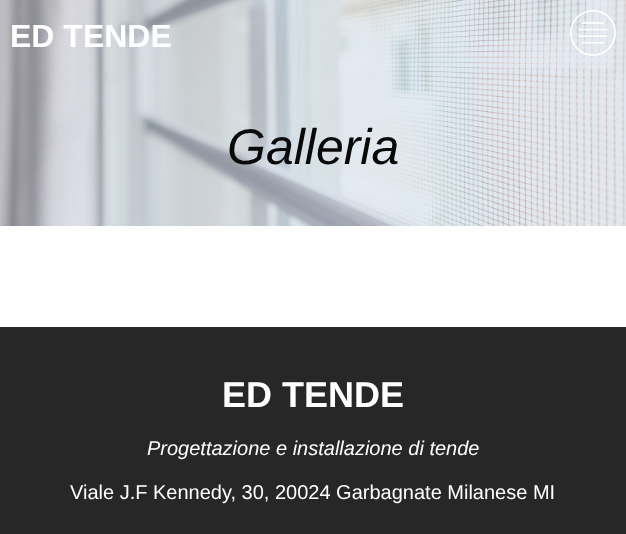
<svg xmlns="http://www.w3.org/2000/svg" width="626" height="534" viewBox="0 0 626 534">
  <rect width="100%" height="100%" fill="#ffffff"/>
  <image x="0" y="0" width="626" height="226" href="img2.png"/>
  <text x="10" y="47" font-family="Liberation Sans" font-size="32" font-weight="bold" fill="#ffffff">ED TENDE</text>
  <image x="570" y="10" width="46" height="46" href="img1.png"/>
  <text x="227" y="164" font-family="Liberation Sans" font-size="50" font-style="italic" fill="#090909">Galleria</text>
  <rect x="0" y="327" width="626" height="207" fill="#272727"/>
  <text x="222" y="407" font-family="Liberation Sans" font-size="36" font-weight="bold" fill="#ffffff">ED TENDE</text>
  <text x="147" y="455" font-family="Liberation Sans" font-size="20" font-style="italic" fill="#ffffff">Progettazione e installazione di tende</text>
  <text x="70" y="499" font-family="Liberation Sans" font-size="20" fill="#ffffff">Viale J.F Kennedy, 30, 20024 Garbagnate Milanese MI</text>
</svg>
